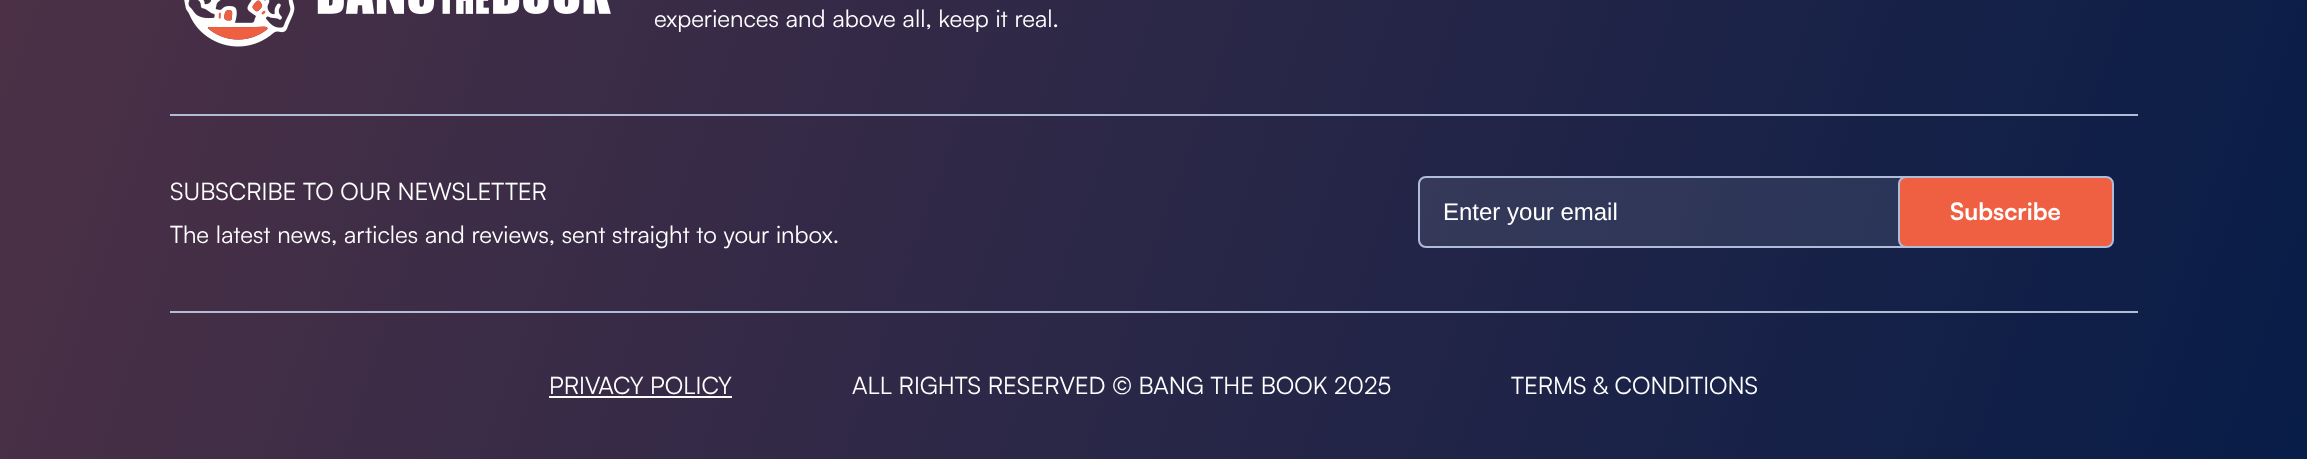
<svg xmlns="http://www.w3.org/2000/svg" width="2307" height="459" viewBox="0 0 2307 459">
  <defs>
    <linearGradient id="g1" gradientUnits="userSpaceOnUse" x1="31" y1="-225" x2="2276" y2="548"><stop offset="0" stop-color="#643846"/><stop offset="0" stop-color="#4d3146"/><stop offset="1" stop-color="#081d48"/></linearGradient>
  </defs>
  <rect width="100%" height="100%" fill="#ffffff"/>
  <rect x="0" y="0" width="2307" height="459" fill="url(#g1)"/>
  <rect x="170" y="114" width="1968" height="2" fill="#afbdd9"/>
  <image x="184" y="0" width="427" height="47" href="img1.png"/>
  <text x="654" y="27" font-family="Satoshi" font-size="24" fill="#ffffff">experiences and above all, keep it real.</text>
  <rect x="170" y="311" width="1968" height="2" fill="#afbdd9"/>
  <text x="170" y="200" font-family="Satoshi" font-size="24" fill="#ffffff">SUBSCRIBE TO OUR NEWSLETTER</text>
  <text x="170" y="243" font-family="Satoshi" font-size="24" fill="#ffffff">The latest news, articles and reviews, sent straight to your inbox.</text>
  <path d="M1426 177H1921V247H1426C1422 247 1419 244 1419 240V184C1419 180 1422 177 1426 177Z" fill="#e5eaf2" fill-opacity="0.1" stroke="#afbdd9" stroke-width="2"/>
  <text x="1443" y="220" font-family="Liberation Sans" font-size="24" fill="#ffffff">Enter your email</text>
  <rect x="1899" y="177" width="214" height="70" rx="7" fill="#ef6043" stroke="#afbdd9" stroke-width="2"/>
  <text x="1950" y="220" font-family="Satoshi" font-size="24" font-weight="bold" fill="#ffffff">Subscribe</text>
  <text x="549" y="394" font-family="Satoshi" font-size="24" fill="#ffffff">PRIVACY POLICY</text>
  <rect x="549" y="396" width="183" height="2" fill="#ffffff"/>
  <text x="852" y="394" font-family="Satoshi" font-size="24" fill="#ffffff">ALL RIGHTS RESERVED © BANG THE BOOK 2025</text>
  <text x="1511" y="394" font-family="Satoshi" font-size="24" fill="#ffffff">TERMS &amp; CONDITIONS</text>
</svg>
